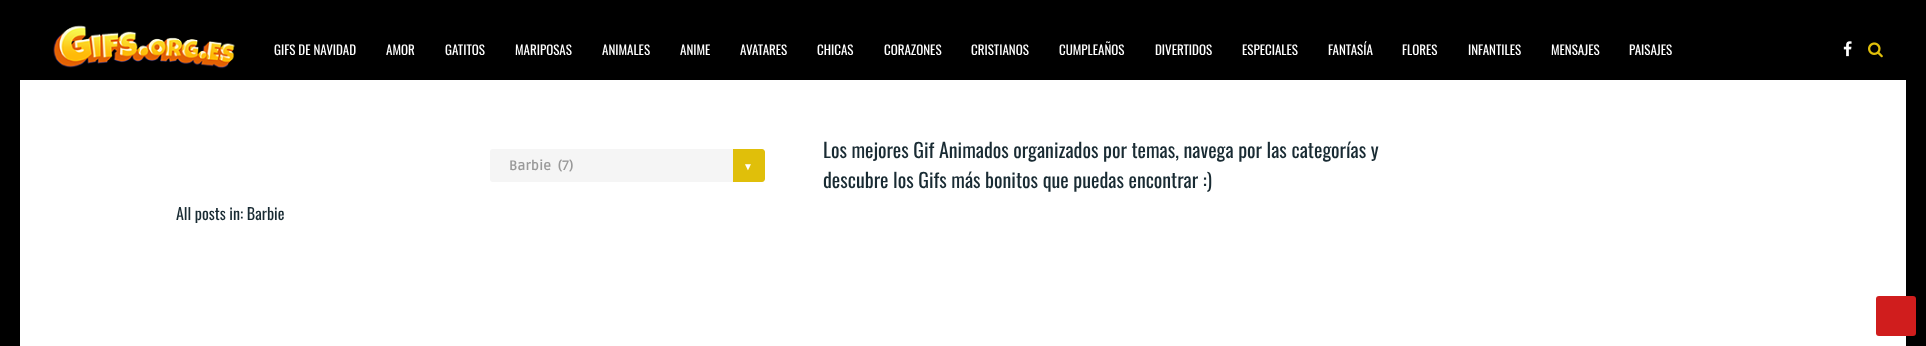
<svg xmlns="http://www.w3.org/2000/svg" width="1926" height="346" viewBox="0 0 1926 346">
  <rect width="100%" height="100%" fill="#000000"/>
  <image x="53" y="25" width="182" height="44" href="img1.png"/>
  <text x="274" y="55" font-family="Oswald" font-size="13" fill="#ffffff">GIFS DE NAVIDAD</text>
  <text x="386" y="55" font-family="Oswald" font-size="13" fill="#ffffff">AMOR</text>
  <text x="445" y="55" font-family="Oswald" font-size="13" fill="#ffffff">GATITOS</text>
  <text x="515" y="55" font-family="Oswald" font-size="13" fill="#ffffff">MARIPOSAS</text>
  <text x="602" y="55" font-family="Oswald" font-size="13" fill="#ffffff">ANIMALES</text>
  <text x="680" y="55" font-family="Oswald" font-size="13" fill="#ffffff">ANIME</text>
  <text x="740" y="55" font-family="Oswald" font-size="13" fill="#ffffff">AVATARES</text>
  <text x="817" y="55" font-family="Oswald" font-size="13" fill="#ffffff">CHICAS</text>
  <text x="884" y="55" font-family="Oswald" font-size="13" fill="#ffffff">CORAZONES</text>
  <text x="971" y="55" font-family="Oswald" font-size="13" fill="#ffffff">CRISTIANOS</text>
  <text x="1059" y="55" font-family="Oswald" font-size="13" fill="#ffffff">CUMPLEAÑOS</text>
  <text x="1155" y="55" font-family="Oswald" font-size="13" fill="#ffffff">DIVERTIDOS</text>
  <text x="1242" y="55" font-family="Oswald" font-size="13" fill="#ffffff">ESPECIALES</text>
  <text x="1328" y="55" font-family="Oswald" font-size="13" fill="#ffffff">FANTASÍA</text>
  <text x="1402" y="55" font-family="Oswald" font-size="13" fill="#ffffff">FLORES</text>
  <text x="1468" y="55" font-family="Oswald" font-size="13" fill="#ffffff">INFANTILES</text>
  <text x="1551" y="55" font-family="Oswald" font-size="13" fill="#ffffff">MENSAJES</text>
  <text x="1629" y="55" font-family="Oswald" font-size="13" fill="#ffffff">PAISAJES</text>
  <image x="1843" y="41" width="9" height="16" href="img2.png"/>
  <image x="1868" y="42" width="15" height="16" href="img3.png"/>
  <rect x="20" y="80" width="1886" height="266" fill="#ffffff"/>
  <rect x="490" y="149" width="275" height="33" rx="3" fill="#f5f5f5"/>
  <text x="509" y="170" font-family="Ruda" font-size="13.5" font-weight="bold" fill="#999999" xml:space="preserve">Barbie  (7)</text>
  <path d="M733 149H762C763.5 149 765 150.5 765 152V179C765 180.5 763.5 182 762 182H733Z" fill="#e0bf0a"/>
  <text x="743" y="170" font-family="Liberation Sans" font-size="10" fill="#ffffff">▼</text>
  <text x="823" y="158" font-family="Oswald" font-size="20" fill="#192b33">Los mejores Gif Animados organizados por temas, navega por las categorías y</text>
  <text x="823" y="188" font-family="Oswald" font-size="20" fill="#192b33">descubre los Gifs más bonitos que puedas encontrar :)</text>
  <text x="176" y="220" font-family="Oswald" font-size="16" fill="#192b33">All posts in: Barbie</text>
  <rect x="1876" y="296" width="40" height="40" rx="3" fill="#d01d1d"/>
</svg>
